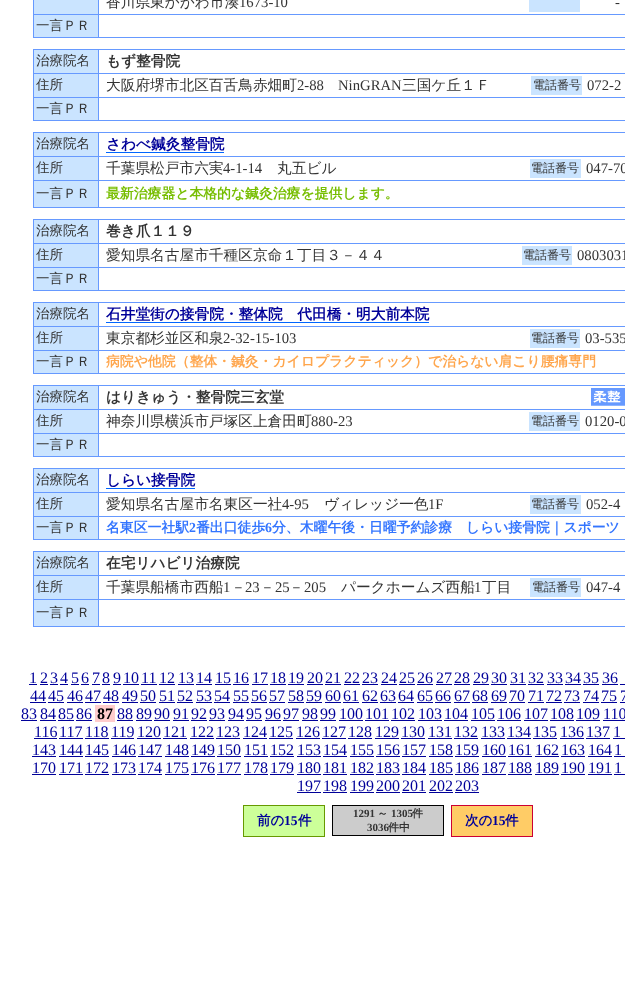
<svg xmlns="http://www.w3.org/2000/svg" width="625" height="992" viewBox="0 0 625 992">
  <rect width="100%" height="100%" fill="#ffffff"/>
  <rect x="33" y="37" width="592" height="1" fill="#6699ff"/>
  <rect x="33" y="0" width="1" height="38" fill="#6699ff"/>
  <rect x="34" y="0" width="64" height="14" fill="#cae4ff"/>
  <rect x="98" y="14" width="527" height="1" fill="#6699ff"/>
  <rect x="98" y="14" width="1" height="24" fill="#6699ff"/>
  <rect x="33" y="14" width="66" height="1" fill="#6699ff"/>
  <rect x="98" y="0" width="1" height="15" fill="#6699ff"/>
  <text x="106" y="7" font-family="WenQuanYi Zen Hei" font-size="14.7" font-weight="500" fill="#333333">香川県東かがわ市湊</text>
  <text x="239" y="7" font-family="Liberation Serif" font-size="14.7" fill="#333333">1673-10</text>
  <rect x="529" y="0" width="51" height="12" fill="#cae4ff"/>
  <text x="615" y="7" font-family="Liberation Serif" font-size="14.7" fill="#333333">-</text>
  <rect x="34" y="15" width="64" height="22" fill="#cae4ff"/>
  <text x="36" y="30" font-family="WenQuanYi Zen Hei" font-size="13.5" font-weight="500" fill="#333333">一言ＰＲ</text>
  <rect x="33" y="49" width="592" height="1" fill="#6699ff"/>
  <rect x="33" y="120" width="592" height="1" fill="#6699ff"/>
  <rect x="33" y="49" width="1" height="72" fill="#6699ff"/>
  <rect x="34" y="50" width="64" height="23" fill="#cae4ff"/>
  <text x="36" y="65" font-family="WenQuanYi Zen Hei" font-size="13.5" font-weight="500" fill="#333333">治療院名</text>
  <rect x="98" y="73" width="527" height="1" fill="#6699ff"/>
  <rect x="98" y="97" width="527" height="1" fill="#6699ff"/>
  <rect x="98" y="97" width="1" height="24" fill="#6699ff"/>
  <rect x="33" y="97" width="66" height="1" fill="#6699ff"/>
  <rect x="98" y="73" width="1" height="25" fill="#6699ff"/>
  <rect x="33" y="73" width="66" height="1" fill="#6699ff"/>
  <rect x="98" y="49" width="1" height="25" fill="#6699ff"/>
  <text x="106" y="66" font-family="WenQuanYi Zen Hei" font-size="14.7" font-weight="bold" fill="#333333">もず整骨院</text>
  <rect x="34" y="74" width="64" height="23" fill="#cae4ff"/>
  <text x="36" y="89" font-family="WenQuanYi Zen Hei" font-size="13.5" font-weight="500" fill="#333333">住所</text>
  <text x="106" y="90" font-family="WenQuanYi Zen Hei" font-size="14.7" font-weight="500" fill="#333333">大阪府堺市北区百舌鳥赤畑町</text>
  <text x="297" y="90" font-family="Liberation Serif" font-size="14.7" fill="#333333">2-88</text>
  <text x="338" y="90" font-family="Liberation Serif" font-size="14.7" fill="#333333">NinGRAN</text>
  <text x="402" y="90" font-family="WenQuanYi Zen Hei" font-size="14.7" font-weight="500" fill="#333333">三国ケ丘１Ｆ</text>
  <rect x="531" y="76" width="51" height="19" fill="#cae4ff"/>
  <text x="533" y="89" font-family="WenQuanYi Zen Hei" font-size="12" font-weight="500" fill="#333333">電話番号</text>
  <text x="587" y="90" font-family="Liberation Serif" font-size="14.7" fill="#333333">072-2</text>
  <rect x="34" y="98" width="64" height="22" fill="#cae4ff"/>
  <text x="36" y="113" font-family="WenQuanYi Zen Hei" font-size="13.5" font-weight="500" fill="#333333">一言ＰＲ</text>
  <rect x="33" y="132" width="592" height="1" fill="#6699ff"/>
  <rect x="33" y="207" width="592" height="1" fill="#6699ff"/>
  <rect x="33" y="132" width="1" height="76" fill="#6699ff"/>
  <rect x="34" y="133" width="64" height="23" fill="#cae4ff"/>
  <text x="36" y="148" font-family="WenQuanYi Zen Hei" font-size="13.5" font-weight="500" fill="#333333">治療院名</text>
  <rect x="98" y="156" width="527" height="1" fill="#6699ff"/>
  <rect x="98" y="180" width="527" height="1" fill="#6699ff"/>
  <rect x="98" y="180" width="1" height="28" fill="#6699ff"/>
  <rect x="33" y="180" width="66" height="1" fill="#6699ff"/>
  <rect x="98" y="156" width="1" height="25" fill="#6699ff"/>
  <rect x="33" y="156" width="66" height="1" fill="#6699ff"/>
  <rect x="98" y="132" width="1" height="25" fill="#6699ff"/>
  <text x="106" y="149" font-family="WenQuanYi Zen Hei" font-size="14.7" font-weight="bold" fill="#000099">さわべ鍼灸整骨院</text>
  <rect x="106" y="152" width="118" height="1" fill="#0066ff"/>
  <rect x="34" y="157" width="64" height="23" fill="#cae4ff"/>
  <text x="36" y="172" font-family="WenQuanYi Zen Hei" font-size="13.5" font-weight="500" fill="#333333">住所</text>
  <text x="106" y="173" font-family="WenQuanYi Zen Hei" font-size="14.7" font-weight="500" fill="#333333">千葉県松戸市六実</text>
  <text x="223" y="173" font-family="Liberation Serif" font-size="14.7" fill="#333333">4-1-14</text>
  <text x="277" y="173" font-family="WenQuanYi Zen Hei" font-size="14.7" font-weight="500" fill="#333333">丸五ビル</text>
  <rect x="530" y="159" width="51" height="19" fill="#cae4ff"/>
  <text x="531" y="172" font-family="WenQuanYi Zen Hei" font-size="12" font-weight="500" fill="#333333">電話番号</text>
  <text x="586" y="173" font-family="Liberation Serif" font-size="14.7" fill="#333333">047-70</text>
  <rect x="34" y="181" width="64" height="26" fill="#cae4ff"/>
  <text x="36" y="198" font-family="WenQuanYi Zen Hei" font-size="13.5" font-weight="500" fill="#333333">一言ＰＲ</text>
  <text x="106" y="198" font-family="WenQuanYi Zen Hei" font-size="13.85" font-weight="bold" fill="#77be01">最新治療器と本格的な鍼灸治療を提供します。</text>
  <rect x="33" y="219" width="592" height="1" fill="#6699ff"/>
  <rect x="33" y="290" width="592" height="1" fill="#6699ff"/>
  <rect x="33" y="219" width="1" height="72" fill="#6699ff"/>
  <rect x="34" y="220" width="64" height="23" fill="#cae4ff"/>
  <text x="36" y="235" font-family="WenQuanYi Zen Hei" font-size="13.5" font-weight="500" fill="#333333">治療院名</text>
  <rect x="98" y="243" width="527" height="1" fill="#6699ff"/>
  <rect x="98" y="267" width="527" height="1" fill="#6699ff"/>
  <rect x="98" y="267" width="1" height="24" fill="#6699ff"/>
  <rect x="33" y="267" width="66" height="1" fill="#6699ff"/>
  <rect x="98" y="243" width="1" height="25" fill="#6699ff"/>
  <rect x="33" y="243" width="66" height="1" fill="#6699ff"/>
  <rect x="98" y="219" width="1" height="25" fill="#6699ff"/>
  <text x="106" y="236" font-family="WenQuanYi Zen Hei" font-size="14.7" font-weight="bold" fill="#333333">巻き爪１１９</text>
  <rect x="34" y="244" width="64" height="23" fill="#cae4ff"/>
  <text x="36" y="259" font-family="WenQuanYi Zen Hei" font-size="13.5" font-weight="500" fill="#333333">住所</text>
  <text x="106" y="260" font-family="WenQuanYi Zen Hei" font-size="14.7" font-weight="500" fill="#333333">愛知県名古屋市千種区京命１丁目３－４４</text>
  <rect x="522" y="246" width="50" height="19" fill="#cae4ff"/>
  <text x="523" y="259" font-family="WenQuanYi Zen Hei" font-size="12" font-weight="500" fill="#333333">電話番号</text>
  <text x="577" y="260" font-family="Liberation Serif" font-size="14.7" fill="#333333">0803031</text>
  <rect x="34" y="268" width="64" height="22" fill="#cae4ff"/>
  <text x="36" y="283" font-family="WenQuanYi Zen Hei" font-size="13.5" font-weight="500" fill="#333333">一言ＰＲ</text>
  <rect x="33" y="302" width="592" height="1" fill="#6699ff"/>
  <rect x="33" y="373" width="592" height="1" fill="#6699ff"/>
  <rect x="33" y="302" width="1" height="72" fill="#6699ff"/>
  <rect x="34" y="303" width="64" height="23" fill="#cae4ff"/>
  <text x="36" y="318" font-family="WenQuanYi Zen Hei" font-size="13.5" font-weight="500" fill="#333333">治療院名</text>
  <rect x="98" y="326" width="527" height="1" fill="#6699ff"/>
  <rect x="98" y="350" width="527" height="1" fill="#6699ff"/>
  <rect x="98" y="350" width="1" height="24" fill="#6699ff"/>
  <rect x="33" y="350" width="66" height="1" fill="#6699ff"/>
  <rect x="98" y="326" width="1" height="25" fill="#6699ff"/>
  <rect x="33" y="326" width="66" height="1" fill="#6699ff"/>
  <rect x="98" y="302" width="1" height="25" fill="#6699ff"/>
  <text x="106" y="319" font-family="WenQuanYi Zen Hei" font-size="14.7" font-weight="bold" fill="#000099">石井堂街の接骨院・整体院　代田橋・明大前本院</text>
  <rect x="106" y="322" width="323" height="1" fill="#0066ff"/>
  <rect x="34" y="327" width="64" height="23" fill="#cae4ff"/>
  <text x="36" y="342" font-family="WenQuanYi Zen Hei" font-size="13.5" font-weight="500" fill="#333333">住所</text>
  <text x="106" y="343" font-family="WenQuanYi Zen Hei" font-size="14.7" font-weight="500" fill="#333333">東京都杉並区和泉</text>
  <text x="223" y="343" font-family="Liberation Serif" font-size="14.7" fill="#333333">2-32-15-103</text>
  <rect x="530" y="329" width="50" height="19" fill="#cae4ff"/>
  <text x="531" y="342" font-family="WenQuanYi Zen Hei" font-size="12" font-weight="500" fill="#333333">電話番号</text>
  <text x="585" y="343" font-family="Liberation Serif" font-size="14.7" fill="#333333">03-535</text>
  <rect x="34" y="351" width="64" height="22" fill="#cae4ff"/>
  <text x="36" y="366" font-family="WenQuanYi Zen Hei" font-size="13.5" font-weight="500" fill="#333333">一言ＰＲ</text>
  <text x="106" y="366" font-family="WenQuanYi Zen Hei" font-size="13.85" font-weight="bold" fill="#ffa64d">病院や他院（整体・鍼灸・カイロプラクティック）で治らない肩こり腰痛専門</text>
  <rect x="33" y="385" width="592" height="1" fill="#6699ff"/>
  <rect x="33" y="456" width="592" height="1" fill="#6699ff"/>
  <rect x="33" y="385" width="1" height="72" fill="#6699ff"/>
  <rect x="34" y="386" width="64" height="23" fill="#cae4ff"/>
  <text x="36" y="401" font-family="WenQuanYi Zen Hei" font-size="13.5" font-weight="500" fill="#333333">治療院名</text>
  <rect x="98" y="409" width="527" height="1" fill="#6699ff"/>
  <rect x="98" y="433" width="527" height="1" fill="#6699ff"/>
  <rect x="98" y="433" width="1" height="24" fill="#6699ff"/>
  <rect x="33" y="433" width="66" height="1" fill="#6699ff"/>
  <rect x="98" y="409" width="1" height="25" fill="#6699ff"/>
  <rect x="33" y="409" width="66" height="1" fill="#6699ff"/>
  <rect x="98" y="385" width="1" height="25" fill="#6699ff"/>
  <text x="106" y="402" font-family="WenQuanYi Zen Hei" font-size="14.7" font-weight="bold" fill="#333333">はりきゅう・整骨院三玄堂</text>
  <image x="591" y="388" width="34" height="18" href="img1.png"/>
  <rect x="34" y="410" width="64" height="23" fill="#cae4ff"/>
  <text x="36" y="425" font-family="WenQuanYi Zen Hei" font-size="13.5" font-weight="500" fill="#333333">住所</text>
  <text x="106" y="426" font-family="WenQuanYi Zen Hei" font-size="14.7" font-weight="500" fill="#333333">神奈川県横浜市戸塚区上倉田町</text>
  <text x="311" y="426" font-family="Liberation Serif" font-size="14.7" fill="#333333">880-23</text>
  <rect x="529" y="412" width="51" height="19" fill="#cae4ff"/>
  <text x="531" y="425" font-family="WenQuanYi Zen Hei" font-size="12" font-weight="500" fill="#333333">電話番号</text>
  <text x="585" y="426" font-family="Liberation Serif" font-size="14.7" fill="#333333">0120-0</text>
  <rect x="34" y="434" width="64" height="22" fill="#cae4ff"/>
  <text x="36" y="449" font-family="WenQuanYi Zen Hei" font-size="13.5" font-weight="500" fill="#333333">一言ＰＲ</text>
  <rect x="33" y="468" width="592" height="1" fill="#6699ff"/>
  <rect x="33" y="539" width="592" height="1" fill="#6699ff"/>
  <rect x="33" y="468" width="1" height="72" fill="#6699ff"/>
  <rect x="34" y="469" width="64" height="23" fill="#cae4ff"/>
  <text x="36" y="484" font-family="WenQuanYi Zen Hei" font-size="13.5" font-weight="500" fill="#333333">治療院名</text>
  <rect x="98" y="492" width="527" height="1" fill="#6699ff"/>
  <rect x="98" y="516" width="527" height="1" fill="#6699ff"/>
  <rect x="98" y="516" width="1" height="24" fill="#6699ff"/>
  <rect x="33" y="516" width="66" height="1" fill="#6699ff"/>
  <rect x="98" y="492" width="1" height="25" fill="#6699ff"/>
  <rect x="33" y="492" width="66" height="1" fill="#6699ff"/>
  <rect x="98" y="468" width="1" height="25" fill="#6699ff"/>
  <text x="106" y="485" font-family="WenQuanYi Zen Hei" font-size="14.7" font-weight="bold" fill="#000099">しらい接骨院</text>
  <rect x="106" y="488" width="89" height="1" fill="#0066ff"/>
  <rect x="34" y="493" width="64" height="23" fill="#cae4ff"/>
  <text x="36" y="508" font-family="WenQuanYi Zen Hei" font-size="13.5" font-weight="500" fill="#333333">住所</text>
  <text x="106" y="509" font-family="WenQuanYi Zen Hei" font-size="14.7" font-weight="500" fill="#333333">愛知県名古屋市名東区一社</text>
  <text x="282" y="509" font-family="Liberation Serif" font-size="14.7" fill="#333333">4-95</text>
  <text x="324" y="509" font-family="WenQuanYi Zen Hei" font-size="14.7" font-weight="500" fill="#333333">ヴィレッジ一色</text>
  <text x="428" y="509" font-family="Liberation Serif" font-size="14.7" fill="#333333">1F</text>
  <rect x="530" y="495" width="51" height="19" fill="#cae4ff"/>
  <text x="531" y="508" font-family="WenQuanYi Zen Hei" font-size="12" font-weight="500" fill="#333333">電話番号</text>
  <text x="586" y="509" font-family="Liberation Serif" font-size="14.7" fill="#333333">052-4</text>
  <rect x="34" y="517" width="64" height="22" fill="#cae4ff"/>
  <text x="36" y="532" font-family="WenQuanYi Zen Hei" font-size="13.5" font-weight="500" fill="#333333">一言ＰＲ</text>
  <text x="106" y="532" font-family="WenQuanYi Zen Hei" font-size="13.85" font-weight="bold" fill="#3375ff">名東区一社駅</text>
  <text x="189" y="532" font-family="Liberation Serif" font-size="13.85" font-weight="bold" fill="#3375ff">2</text>
  <text x="196" y="532" font-family="WenQuanYi Zen Hei" font-size="13.85" font-weight="bold" fill="#3375ff">番出口徒歩</text>
  <text x="265" y="532" font-family="Liberation Serif" font-size="13.85" font-weight="bold" fill="#3375ff">6</text>
  <text x="272" y="532" font-family="WenQuanYi Zen Hei" font-size="13.85" font-weight="bold" fill="#3375ff">分、木曜午後・日曜予約診療　しらい接骨院｜スポーツ</text>
  <rect x="33" y="551" width="592" height="1" fill="#6699ff"/>
  <rect x="33" y="626" width="592" height="1" fill="#6699ff"/>
  <rect x="33" y="551" width="1" height="76" fill="#6699ff"/>
  <rect x="34" y="552" width="64" height="23" fill="#cae4ff"/>
  <text x="36" y="567" font-family="WenQuanYi Zen Hei" font-size="13.5" font-weight="500" fill="#333333">治療院名</text>
  <rect x="98" y="575" width="527" height="1" fill="#6699ff"/>
  <rect x="98" y="599" width="527" height="1" fill="#6699ff"/>
  <rect x="98" y="599" width="1" height="28" fill="#6699ff"/>
  <rect x="33" y="599" width="66" height="1" fill="#6699ff"/>
  <rect x="98" y="575" width="1" height="25" fill="#6699ff"/>
  <rect x="33" y="575" width="66" height="1" fill="#6699ff"/>
  <rect x="98" y="551" width="1" height="25" fill="#6699ff"/>
  <text x="106" y="568" font-family="WenQuanYi Zen Hei" font-size="14.7" font-weight="bold" fill="#333333">在宅リハビリ治療院</text>
  <rect x="34" y="576" width="64" height="23" fill="#cae4ff"/>
  <text x="36" y="591" font-family="WenQuanYi Zen Hei" font-size="13.5" font-weight="500" fill="#333333">住所</text>
  <text x="106" y="592" font-family="WenQuanYi Zen Hei" font-size="14.7" font-weight="500" fill="#333333">千葉県船橋市西船</text>
  <text x="223" y="592" font-family="Liberation Serif" font-size="14.7" fill="#333333">1</text>
  <text x="231" y="592" font-family="WenQuanYi Zen Hei" font-size="14.7" font-weight="500" fill="#333333">－</text>
  <text x="245" y="592" font-family="Liberation Serif" font-size="14.7" fill="#333333">23</text>
  <text x="260" y="592" font-family="WenQuanYi Zen Hei" font-size="14.7" font-weight="500" fill="#333333">－</text>
  <text x="275" y="592" font-family="Liberation Serif" font-size="14.7" fill="#333333">25</text>
  <text x="289" y="592" font-family="WenQuanYi Zen Hei" font-size="14.7" font-weight="500" fill="#333333">－</text>
  <text x="304" y="592" font-family="Liberation Serif" font-size="14.7" fill="#333333">205</text>
  <text x="341" y="592" font-family="WenQuanYi Zen Hei" font-size="14.7" font-weight="500" fill="#333333">パークホームズ西船</text>
  <text x="474" y="592" font-family="Liberation Serif" font-size="14.7" fill="#333333">1</text>
  <text x="482" y="592" font-family="WenQuanYi Zen Hei" font-size="14.7" font-weight="500" fill="#333333">丁目</text>
  <rect x="530" y="578" width="51" height="19" fill="#cae4ff"/>
  <text x="532" y="591" font-family="WenQuanYi Zen Hei" font-size="12" font-weight="500" fill="#333333">電話番号</text>
  <text x="586" y="592" font-family="Liberation Serif" font-size="14.7" fill="#333333">047-4</text>
  <rect x="34" y="600" width="64" height="26" fill="#cae4ff"/>
  <text x="36" y="617" font-family="WenQuanYi Zen Hei" font-size="13.5" font-weight="500" fill="#333333">一言ＰＲ</text>
  <text x="29" y="683" font-family="Liberation Serif" font-size="16" fill="#000099">1</text>
  <rect x="29" y="684" width="8" height="1" fill="#000099"/>
  <text x="40" y="683" font-family="Liberation Serif" font-size="16" fill="#000099">2</text>
  <rect x="40" y="684" width="8" height="1" fill="#000099"/>
  <text x="50" y="683" font-family="Liberation Serif" font-size="16" fill="#000099">3</text>
  <rect x="50" y="684" width="8" height="1" fill="#000099"/>
  <text x="60" y="683" font-family="Liberation Serif" font-size="16" fill="#000099">4</text>
  <rect x="60" y="684" width="8" height="1" fill="#000099"/>
  <text x="71" y="683" font-family="Liberation Serif" font-size="16" fill="#000099">5</text>
  <rect x="71" y="684" width="8" height="1" fill="#000099"/>
  <text x="81" y="683" font-family="Liberation Serif" font-size="16" fill="#000099">6</text>
  <rect x="81" y="684" width="8" height="1" fill="#000099"/>
  <text x="92" y="683" font-family="Liberation Serif" font-size="16" fill="#000099">7</text>
  <rect x="92" y="684" width="8" height="1" fill="#000099"/>
  <text x="102" y="683" font-family="Liberation Serif" font-size="16" fill="#000099">8</text>
  <rect x="102" y="684" width="8" height="1" fill="#000099"/>
  <text x="113" y="683" font-family="Liberation Serif" font-size="16" fill="#000099">9</text>
  <rect x="113" y="684" width="8" height="1" fill="#000099"/>
  <text x="123" y="683" font-family="Liberation Serif" font-size="16" fill="#000099">10</text>
  <rect x="123" y="684" width="16" height="1" fill="#000099"/>
  <text x="141" y="683" font-family="Liberation Serif" font-size="16" fill="#000099">11</text>
  <rect x="141" y="684" width="16" height="1" fill="#000099"/>
  <text x="159" y="683" font-family="Liberation Serif" font-size="16" fill="#000099">12</text>
  <rect x="159" y="684" width="16" height="1" fill="#000099"/>
  <text x="178" y="683" font-family="Liberation Serif" font-size="16" fill="#000099">13</text>
  <rect x="178" y="684" width="16" height="1" fill="#000099"/>
  <text x="196" y="683" font-family="Liberation Serif" font-size="16" fill="#000099">14</text>
  <rect x="196" y="684" width="16" height="1" fill="#000099"/>
  <text x="215" y="683" font-family="Liberation Serif" font-size="16" fill="#000099">15</text>
  <rect x="215" y="684" width="16" height="1" fill="#000099"/>
  <text x="233" y="683" font-family="Liberation Serif" font-size="16" fill="#000099">16</text>
  <rect x="233" y="684" width="16" height="1" fill="#000099"/>
  <text x="252" y="683" font-family="Liberation Serif" font-size="16" fill="#000099">17</text>
  <rect x="252" y="684" width="16" height="1" fill="#000099"/>
  <text x="270" y="683" font-family="Liberation Serif" font-size="16" fill="#000099">18</text>
  <rect x="270" y="684" width="16" height="1" fill="#000099"/>
  <text x="288" y="683" font-family="Liberation Serif" font-size="16" fill="#000099">19</text>
  <rect x="288" y="684" width="16" height="1" fill="#000099"/>
  <text x="307" y="683" font-family="Liberation Serif" font-size="16" fill="#000099">20</text>
  <rect x="307" y="684" width="16" height="1" fill="#000099"/>
  <text x="325" y="683" font-family="Liberation Serif" font-size="16" fill="#000099">21</text>
  <rect x="325" y="684" width="16" height="1" fill="#000099"/>
  <text x="344" y="683" font-family="Liberation Serif" font-size="16" fill="#000099">22</text>
  <rect x="344" y="684" width="16" height="1" fill="#000099"/>
  <text x="362" y="683" font-family="Liberation Serif" font-size="16" fill="#000099">23</text>
  <rect x="362" y="684" width="16" height="1" fill="#000099"/>
  <text x="381" y="683" font-family="Liberation Serif" font-size="16" fill="#000099">24</text>
  <rect x="381" y="684" width="16" height="1" fill="#000099"/>
  <text x="399" y="683" font-family="Liberation Serif" font-size="16" fill="#000099">25</text>
  <rect x="399" y="684" width="16" height="1" fill="#000099"/>
  <text x="417" y="683" font-family="Liberation Serif" font-size="16" fill="#000099">26</text>
  <rect x="417" y="684" width="16" height="1" fill="#000099"/>
  <text x="436" y="683" font-family="Liberation Serif" font-size="16" fill="#000099">27</text>
  <rect x="436" y="684" width="16" height="1" fill="#000099"/>
  <text x="454" y="683" font-family="Liberation Serif" font-size="16" fill="#000099">28</text>
  <rect x="454" y="684" width="16" height="1" fill="#000099"/>
  <text x="473" y="683" font-family="Liberation Serif" font-size="16" fill="#000099">29</text>
  <rect x="473" y="684" width="16" height="1" fill="#000099"/>
  <text x="491" y="683" font-family="Liberation Serif" font-size="16" fill="#000099">30</text>
  <rect x="491" y="684" width="16" height="1" fill="#000099"/>
  <text x="510" y="683" font-family="Liberation Serif" font-size="16" fill="#000099">31</text>
  <rect x="510" y="684" width="16" height="1" fill="#000099"/>
  <text x="528" y="683" font-family="Liberation Serif" font-size="16" fill="#000099">32</text>
  <rect x="528" y="684" width="16" height="1" fill="#000099"/>
  <text x="547" y="683" font-family="Liberation Serif" font-size="16" fill="#000099">33</text>
  <rect x="547" y="684" width="16" height="1" fill="#000099"/>
  <text x="565" y="683" font-family="Liberation Serif" font-size="16" fill="#000099">34</text>
  <rect x="565" y="684" width="16" height="1" fill="#000099"/>
  <text x="583" y="683" font-family="Liberation Serif" font-size="16" fill="#000099">35</text>
  <rect x="583" y="684" width="16" height="1" fill="#000099"/>
  <text x="602" y="683" font-family="Liberation Serif" font-size="16" fill="#000099">36</text>
  <rect x="602" y="684" width="16" height="1" fill="#000099"/>
  <rect x="620" y="684" width="5" height="1" fill="#000099"/>
  <text x="30" y="701" font-family="Liberation Serif" font-size="16" fill="#000099">44</text>
  <rect x="30" y="702" width="16" height="1" fill="#000099"/>
  <text x="48" y="701" font-family="Liberation Serif" font-size="16" fill="#000099">45</text>
  <rect x="48" y="702" width="16" height="1" fill="#000099"/>
  <text x="67" y="701" font-family="Liberation Serif" font-size="16" fill="#000099">46</text>
  <rect x="67" y="702" width="16" height="1" fill="#000099"/>
  <text x="85" y="701" font-family="Liberation Serif" font-size="16" fill="#000099">47</text>
  <rect x="85" y="702" width="16" height="1" fill="#000099"/>
  <text x="103" y="701" font-family="Liberation Serif" font-size="16" fill="#000099">48</text>
  <rect x="103" y="702" width="16" height="1" fill="#000099"/>
  <text x="122" y="701" font-family="Liberation Serif" font-size="16" fill="#000099">49</text>
  <rect x="122" y="702" width="16" height="1" fill="#000099"/>
  <text x="140" y="701" font-family="Liberation Serif" font-size="16" fill="#000099">50</text>
  <rect x="140" y="702" width="16" height="1" fill="#000099"/>
  <text x="159" y="701" font-family="Liberation Serif" font-size="16" fill="#000099">51</text>
  <rect x="159" y="702" width="16" height="1" fill="#000099"/>
  <text x="177" y="701" font-family="Liberation Serif" font-size="16" fill="#000099">52</text>
  <rect x="177" y="702" width="16" height="1" fill="#000099"/>
  <text x="196" y="701" font-family="Liberation Serif" font-size="16" fill="#000099">53</text>
  <rect x="196" y="702" width="16" height="1" fill="#000099"/>
  <text x="214" y="701" font-family="Liberation Serif" font-size="16" fill="#000099">54</text>
  <rect x="214" y="702" width="16" height="1" fill="#000099"/>
  <text x="233" y="701" font-family="Liberation Serif" font-size="16" fill="#000099">55</text>
  <rect x="233" y="702" width="16" height="1" fill="#000099"/>
  <text x="251" y="701" font-family="Liberation Serif" font-size="16" fill="#000099">56</text>
  <rect x="251" y="702" width="16" height="1" fill="#000099"/>
  <text x="269" y="701" font-family="Liberation Serif" font-size="16" fill="#000099">57</text>
  <rect x="269" y="702" width="16" height="1" fill="#000099"/>
  <text x="288" y="701" font-family="Liberation Serif" font-size="16" fill="#000099">58</text>
  <rect x="288" y="702" width="16" height="1" fill="#000099"/>
  <text x="306" y="701" font-family="Liberation Serif" font-size="16" fill="#000099">59</text>
  <rect x="306" y="702" width="16" height="1" fill="#000099"/>
  <text x="325" y="701" font-family="Liberation Serif" font-size="16" fill="#000099">60</text>
  <rect x="325" y="702" width="16" height="1" fill="#000099"/>
  <text x="343" y="701" font-family="Liberation Serif" font-size="16" fill="#000099">61</text>
  <rect x="343" y="702" width="16" height="1" fill="#000099"/>
  <text x="362" y="701" font-family="Liberation Serif" font-size="16" fill="#000099">62</text>
  <rect x="362" y="702" width="16" height="1" fill="#000099"/>
  <text x="380" y="701" font-family="Liberation Serif" font-size="16" fill="#000099">63</text>
  <rect x="380" y="702" width="16" height="1" fill="#000099"/>
  <text x="398" y="701" font-family="Liberation Serif" font-size="16" fill="#000099">64</text>
  <rect x="398" y="702" width="16" height="1" fill="#000099"/>
  <text x="417" y="701" font-family="Liberation Serif" font-size="16" fill="#000099">65</text>
  <rect x="417" y="702" width="16" height="1" fill="#000099"/>
  <text x="435" y="701" font-family="Liberation Serif" font-size="16" fill="#000099">66</text>
  <rect x="435" y="702" width="16" height="1" fill="#000099"/>
  <text x="454" y="701" font-family="Liberation Serif" font-size="16" fill="#000099">67</text>
  <rect x="454" y="702" width="16" height="1" fill="#000099"/>
  <text x="472" y="701" font-family="Liberation Serif" font-size="16" fill="#000099">68</text>
  <rect x="472" y="702" width="16" height="1" fill="#000099"/>
  <text x="491" y="701" font-family="Liberation Serif" font-size="16" fill="#000099">69</text>
  <rect x="491" y="702" width="16" height="1" fill="#000099"/>
  <text x="509" y="701" font-family="Liberation Serif" font-size="16" fill="#000099">70</text>
  <rect x="509" y="702" width="16" height="1" fill="#000099"/>
  <text x="528" y="701" font-family="Liberation Serif" font-size="16" fill="#000099">71</text>
  <rect x="528" y="702" width="16" height="1" fill="#000099"/>
  <text x="546" y="701" font-family="Liberation Serif" font-size="16" fill="#000099">72</text>
  <rect x="546" y="702" width="16" height="1" fill="#000099"/>
  <text x="564" y="701" font-family="Liberation Serif" font-size="16" fill="#000099">73</text>
  <rect x="564" y="702" width="16" height="1" fill="#000099"/>
  <text x="583" y="701" font-family="Liberation Serif" font-size="16" fill="#000099">74</text>
  <rect x="583" y="702" width="16" height="1" fill="#000099"/>
  <text x="601" y="701" font-family="Liberation Serif" font-size="16" fill="#000099">75</text>
  <rect x="601" y="702" width="16" height="1" fill="#000099"/>
  <text x="620" y="701" font-family="Liberation Serif" font-size="16" fill="#000099">7</text>
  <rect x="620" y="702" width="5" height="1" fill="#000099"/>
  <text x="21" y="719" font-family="Liberation Serif" font-size="16" fill="#000099">83</text>
  <rect x="21" y="720" width="16" height="1" fill="#000099"/>
  <text x="40" y="719" font-family="Liberation Serif" font-size="16" fill="#000099">84</text>
  <rect x="40" y="720" width="16" height="1" fill="#000099"/>
  <text x="58" y="719" font-family="Liberation Serif" font-size="16" fill="#000099">85</text>
  <rect x="58" y="720" width="16" height="1" fill="#000099"/>
  <text x="76" y="719" font-family="Liberation Serif" font-size="16" fill="#000099">86</text>
  <rect x="76" y="720" width="16" height="1" fill="#000099"/>
  <rect x="95" y="705" width="20" height="17" fill="#ffcccc"/>
  <text x="97" y="719" font-family="Liberation Serif" font-size="16" font-weight="bold" fill="#000000">87</text>
  <text x="117" y="719" font-family="Liberation Serif" font-size="16" fill="#000099">88</text>
  <rect x="117" y="720" width="16" height="1" fill="#000099"/>
  <text x="136" y="719" font-family="Liberation Serif" font-size="16" fill="#000099">89</text>
  <rect x="136" y="720" width="16" height="1" fill="#000099"/>
  <text x="154" y="719" font-family="Liberation Serif" font-size="16" fill="#000099">90</text>
  <rect x="154" y="720" width="16" height="1" fill="#000099"/>
  <text x="173" y="719" font-family="Liberation Serif" font-size="16" fill="#000099">91</text>
  <rect x="173" y="720" width="16" height="1" fill="#000099"/>
  <text x="191" y="719" font-family="Liberation Serif" font-size="16" fill="#000099">92</text>
  <rect x="191" y="720" width="16" height="1" fill="#000099"/>
  <text x="209" y="719" font-family="Liberation Serif" font-size="16" fill="#000099">93</text>
  <rect x="209" y="720" width="16" height="1" fill="#000099"/>
  <text x="228" y="719" font-family="Liberation Serif" font-size="16" fill="#000099">94</text>
  <rect x="228" y="720" width="16" height="1" fill="#000099"/>
  <text x="246" y="719" font-family="Liberation Serif" font-size="16" fill="#000099">95</text>
  <rect x="246" y="720" width="16" height="1" fill="#000099"/>
  <text x="265" y="719" font-family="Liberation Serif" font-size="16" fill="#000099">96</text>
  <rect x="265" y="720" width="16" height="1" fill="#000099"/>
  <text x="283" y="719" font-family="Liberation Serif" font-size="16" fill="#000099">97</text>
  <rect x="283" y="720" width="16" height="1" fill="#000099"/>
  <text x="302" y="719" font-family="Liberation Serif" font-size="16" fill="#000099">98</text>
  <rect x="302" y="720" width="16" height="1" fill="#000099"/>
  <text x="320" y="719" font-family="Liberation Serif" font-size="16" fill="#000099">99</text>
  <rect x="320" y="720" width="16" height="1" fill="#000099"/>
  <text x="339" y="719" font-family="Liberation Serif" font-size="16" fill="#000099">100</text>
  <rect x="339" y="720" width="24" height="1" fill="#000099"/>
  <text x="365" y="719" font-family="Liberation Serif" font-size="16" fill="#000099">101</text>
  <rect x="365" y="720" width="24" height="1" fill="#000099"/>
  <text x="391" y="719" font-family="Liberation Serif" font-size="16" fill="#000099">102</text>
  <rect x="391" y="720" width="24" height="1" fill="#000099"/>
  <text x="418" y="719" font-family="Liberation Serif" font-size="16" fill="#000099">103</text>
  <rect x="418" y="720" width="24" height="1" fill="#000099"/>
  <text x="444" y="719" font-family="Liberation Serif" font-size="16" fill="#000099">104</text>
  <rect x="444" y="720" width="24" height="1" fill="#000099"/>
  <text x="471" y="719" font-family="Liberation Serif" font-size="16" fill="#000099">105</text>
  <rect x="471" y="720" width="24" height="1" fill="#000099"/>
  <text x="497" y="719" font-family="Liberation Serif" font-size="16" fill="#000099">106</text>
  <rect x="497" y="720" width="24" height="1" fill="#000099"/>
  <text x="524" y="719" font-family="Liberation Serif" font-size="16" fill="#000099">107</text>
  <rect x="524" y="720" width="24" height="1" fill="#000099"/>
  <text x="550" y="719" font-family="Liberation Serif" font-size="16" fill="#000099">108</text>
  <rect x="550" y="720" width="24" height="1" fill="#000099"/>
  <text x="576" y="719" font-family="Liberation Serif" font-size="16" fill="#000099">109</text>
  <rect x="576" y="720" width="24" height="1" fill="#000099"/>
  <text x="603" y="719" font-family="Liberation Serif" font-size="16" fill="#000099">110</text>
  <rect x="603" y="720" width="22" height="1" fill="#000099"/>
  <text x="34" y="737" font-family="Liberation Serif" font-size="16" fill="#000099">116</text>
  <rect x="34" y="738" width="23" height="1" fill="#000099"/>
  <text x="59" y="737" font-family="Liberation Serif" font-size="16" fill="#000099">117</text>
  <rect x="59" y="738" width="24" height="1" fill="#000099"/>
  <text x="85" y="737" font-family="Liberation Serif" font-size="16" fill="#000099">118</text>
  <rect x="85" y="738" width="24" height="1" fill="#000099"/>
  <text x="111" y="737" font-family="Liberation Serif" font-size="16" fill="#000099">119</text>
  <rect x="111" y="738" width="23" height="1" fill="#000099"/>
  <text x="137" y="737" font-family="Liberation Serif" font-size="16" fill="#000099">120</text>
  <rect x="137" y="738" width="24" height="1" fill="#000099"/>
  <text x="163" y="737" font-family="Liberation Serif" font-size="16" fill="#000099">121</text>
  <rect x="163" y="738" width="24" height="1" fill="#000099"/>
  <text x="190" y="737" font-family="Liberation Serif" font-size="16" fill="#000099">122</text>
  <rect x="190" y="738" width="24" height="1" fill="#000099"/>
  <text x="216" y="737" font-family="Liberation Serif" font-size="16" fill="#000099">123</text>
  <rect x="216" y="738" width="24" height="1" fill="#000099"/>
  <text x="243" y="737" font-family="Liberation Serif" font-size="16" fill="#000099">124</text>
  <rect x="243" y="738" width="24" height="1" fill="#000099"/>
  <text x="269" y="737" font-family="Liberation Serif" font-size="16" fill="#000099">125</text>
  <rect x="269" y="738" width="24" height="1" fill="#000099"/>
  <text x="296" y="737" font-family="Liberation Serif" font-size="16" fill="#000099">126</text>
  <rect x="296" y="738" width="24" height="1" fill="#000099"/>
  <text x="322" y="737" font-family="Liberation Serif" font-size="16" fill="#000099">127</text>
  <rect x="322" y="738" width="24" height="1" fill="#000099"/>
  <text x="348" y="737" font-family="Liberation Serif" font-size="16" fill="#000099">128</text>
  <rect x="348" y="738" width="24" height="1" fill="#000099"/>
  <text x="375" y="737" font-family="Liberation Serif" font-size="16" fill="#000099">129</text>
  <rect x="375" y="738" width="24" height="1" fill="#000099"/>
  <text x="401" y="737" font-family="Liberation Serif" font-size="16" fill="#000099">130</text>
  <rect x="401" y="738" width="24" height="1" fill="#000099"/>
  <text x="428" y="737" font-family="Liberation Serif" font-size="16" fill="#000099">131</text>
  <rect x="428" y="738" width="24" height="1" fill="#000099"/>
  <text x="454" y="737" font-family="Liberation Serif" font-size="16" fill="#000099">132</text>
  <rect x="454" y="738" width="24" height="1" fill="#000099"/>
  <text x="481" y="737" font-family="Liberation Serif" font-size="16" fill="#000099">133</text>
  <rect x="481" y="738" width="24" height="1" fill="#000099"/>
  <text x="507" y="737" font-family="Liberation Serif" font-size="16" fill="#000099">134</text>
  <rect x="507" y="738" width="24" height="1" fill="#000099"/>
  <text x="533" y="737" font-family="Liberation Serif" font-size="16" fill="#000099">135</text>
  <rect x="533" y="738" width="24" height="1" fill="#000099"/>
  <text x="560" y="737" font-family="Liberation Serif" font-size="16" fill="#000099">136</text>
  <rect x="560" y="738" width="24" height="1" fill="#000099"/>
  <text x="586" y="737" font-family="Liberation Serif" font-size="16" fill="#000099">137</text>
  <rect x="586" y="738" width="24" height="1" fill="#000099"/>
  <text x="613" y="737" font-family="Liberation Serif" font-size="16" fill="#000099">1</text>
  <rect x="613" y="738" width="12" height="1" fill="#000099"/>
  <text x="32" y="755" font-family="Liberation Serif" font-size="16" fill="#000099">143</text>
  <rect x="32" y="756" width="24" height="1" fill="#000099"/>
  <text x="59" y="755" font-family="Liberation Serif" font-size="16" fill="#000099">144</text>
  <rect x="59" y="756" width="24" height="1" fill="#000099"/>
  <text x="85" y="755" font-family="Liberation Serif" font-size="16" fill="#000099">145</text>
  <rect x="85" y="756" width="24" height="1" fill="#000099"/>
  <text x="112" y="755" font-family="Liberation Serif" font-size="16" fill="#000099">146</text>
  <rect x="112" y="756" width="24" height="1" fill="#000099"/>
  <text x="138" y="755" font-family="Liberation Serif" font-size="16" fill="#000099">147</text>
  <rect x="138" y="756" width="24" height="1" fill="#000099"/>
  <text x="165" y="755" font-family="Liberation Serif" font-size="16" fill="#000099">148</text>
  <rect x="165" y="756" width="24" height="1" fill="#000099"/>
  <text x="191" y="755" font-family="Liberation Serif" font-size="16" fill="#000099">149</text>
  <rect x="191" y="756" width="24" height="1" fill="#000099"/>
  <text x="217" y="755" font-family="Liberation Serif" font-size="16" fill="#000099">150</text>
  <rect x="217" y="756" width="24" height="1" fill="#000099"/>
  <text x="244" y="755" font-family="Liberation Serif" font-size="16" fill="#000099">151</text>
  <rect x="244" y="756" width="24" height="1" fill="#000099"/>
  <text x="270" y="755" font-family="Liberation Serif" font-size="16" fill="#000099">152</text>
  <rect x="270" y="756" width="24" height="1" fill="#000099"/>
  <text x="297" y="755" font-family="Liberation Serif" font-size="16" fill="#000099">153</text>
  <rect x="297" y="756" width="24" height="1" fill="#000099"/>
  <text x="323" y="755" font-family="Liberation Serif" font-size="16" fill="#000099">154</text>
  <rect x="323" y="756" width="24" height="1" fill="#000099"/>
  <text x="350" y="755" font-family="Liberation Serif" font-size="16" fill="#000099">155</text>
  <rect x="350" y="756" width="24" height="1" fill="#000099"/>
  <text x="376" y="755" font-family="Liberation Serif" font-size="16" fill="#000099">156</text>
  <rect x="376" y="756" width="24" height="1" fill="#000099"/>
  <text x="402" y="755" font-family="Liberation Serif" font-size="16" fill="#000099">157</text>
  <rect x="402" y="756" width="24" height="1" fill="#000099"/>
  <text x="429" y="755" font-family="Liberation Serif" font-size="16" fill="#000099">158</text>
  <rect x="429" y="756" width="24" height="1" fill="#000099"/>
  <text x="455" y="755" font-family="Liberation Serif" font-size="16" fill="#000099">159</text>
  <rect x="455" y="756" width="24" height="1" fill="#000099"/>
  <text x="482" y="755" font-family="Liberation Serif" font-size="16" fill="#000099">160</text>
  <rect x="482" y="756" width="24" height="1" fill="#000099"/>
  <text x="508" y="755" font-family="Liberation Serif" font-size="16" fill="#000099">161</text>
  <rect x="508" y="756" width="24" height="1" fill="#000099"/>
  <text x="535" y="755" font-family="Liberation Serif" font-size="16" fill="#000099">162</text>
  <rect x="535" y="756" width="24" height="1" fill="#000099"/>
  <text x="561" y="755" font-family="Liberation Serif" font-size="16" fill="#000099">163</text>
  <rect x="561" y="756" width="24" height="1" fill="#000099"/>
  <text x="588" y="755" font-family="Liberation Serif" font-size="16" fill="#000099">164</text>
  <rect x="588" y="756" width="24" height="1" fill="#000099"/>
  <text x="614" y="755" font-family="Liberation Serif" font-size="16" fill="#000099">1</text>
  <rect x="614" y="756" width="11" height="1" fill="#000099"/>
  <text x="32" y="773" font-family="Liberation Serif" font-size="16" fill="#000099">170</text>
  <rect x="32" y="774" width="24" height="1" fill="#000099"/>
  <text x="59" y="773" font-family="Liberation Serif" font-size="16" fill="#000099">171</text>
  <rect x="59" y="774" width="24" height="1" fill="#000099"/>
  <text x="85" y="773" font-family="Liberation Serif" font-size="16" fill="#000099">172</text>
  <rect x="85" y="774" width="24" height="1" fill="#000099"/>
  <text x="112" y="773" font-family="Liberation Serif" font-size="16" fill="#000099">173</text>
  <rect x="112" y="774" width="24" height="1" fill="#000099"/>
  <text x="138" y="773" font-family="Liberation Serif" font-size="16" fill="#000099">174</text>
  <rect x="138" y="774" width="24" height="1" fill="#000099"/>
  <text x="165" y="773" font-family="Liberation Serif" font-size="16" fill="#000099">175</text>
  <rect x="165" y="774" width="24" height="1" fill="#000099"/>
  <text x="191" y="773" font-family="Liberation Serif" font-size="16" fill="#000099">176</text>
  <rect x="191" y="774" width="24" height="1" fill="#000099"/>
  <text x="217" y="773" font-family="Liberation Serif" font-size="16" fill="#000099">177</text>
  <rect x="217" y="774" width="24" height="1" fill="#000099"/>
  <text x="244" y="773" font-family="Liberation Serif" font-size="16" fill="#000099">178</text>
  <rect x="244" y="774" width="24" height="1" fill="#000099"/>
  <text x="270" y="773" font-family="Liberation Serif" font-size="16" fill="#000099">179</text>
  <rect x="270" y="774" width="24" height="1" fill="#000099"/>
  <text x="297" y="773" font-family="Liberation Serif" font-size="16" fill="#000099">180</text>
  <rect x="297" y="774" width="24" height="1" fill="#000099"/>
  <text x="323" y="773" font-family="Liberation Serif" font-size="16" fill="#000099">181</text>
  <rect x="323" y="774" width="24" height="1" fill="#000099"/>
  <text x="350" y="773" font-family="Liberation Serif" font-size="16" fill="#000099">182</text>
  <rect x="350" y="774" width="24" height="1" fill="#000099"/>
  <text x="376" y="773" font-family="Liberation Serif" font-size="16" fill="#000099">183</text>
  <rect x="376" y="774" width="24" height="1" fill="#000099"/>
  <text x="402" y="773" font-family="Liberation Serif" font-size="16" fill="#000099">184</text>
  <rect x="402" y="774" width="24" height="1" fill="#000099"/>
  <text x="429" y="773" font-family="Liberation Serif" font-size="16" fill="#000099">185</text>
  <rect x="429" y="774" width="24" height="1" fill="#000099"/>
  <text x="455" y="773" font-family="Liberation Serif" font-size="16" fill="#000099">186</text>
  <rect x="455" y="774" width="24" height="1" fill="#000099"/>
  <text x="482" y="773" font-family="Liberation Serif" font-size="16" fill="#000099">187</text>
  <rect x="482" y="774" width="24" height="1" fill="#000099"/>
  <text x="508" y="773" font-family="Liberation Serif" font-size="16" fill="#000099">188</text>
  <rect x="508" y="774" width="24" height="1" fill="#000099"/>
  <text x="535" y="773" font-family="Liberation Serif" font-size="16" fill="#000099">189</text>
  <rect x="535" y="774" width="24" height="1" fill="#000099"/>
  <text x="561" y="773" font-family="Liberation Serif" font-size="16" fill="#000099">190</text>
  <rect x="561" y="774" width="24" height="1" fill="#000099"/>
  <text x="588" y="773" font-family="Liberation Serif" font-size="16" fill="#000099">191</text>
  <rect x="588" y="774" width="24" height="1" fill="#000099"/>
  <text x="614" y="773" font-family="Liberation Serif" font-size="16" fill="#000099">1</text>
  <rect x="614" y="774" width="11" height="1" fill="#000099"/>
  <text x="297" y="791" font-family="Liberation Serif" font-size="16" fill="#000099">197</text>
  <rect x="297" y="792" width="24" height="1" fill="#000099"/>
  <text x="323" y="791" font-family="Liberation Serif" font-size="16" fill="#000099">198</text>
  <rect x="323" y="792" width="24" height="1" fill="#000099"/>
  <text x="350" y="791" font-family="Liberation Serif" font-size="16" fill="#000099">199</text>
  <rect x="350" y="792" width="24" height="1" fill="#000099"/>
  <text x="376" y="791" font-family="Liberation Serif" font-size="16" fill="#000099">200</text>
  <rect x="376" y="792" width="24" height="1" fill="#000099"/>
  <text x="402" y="791" font-family="Liberation Serif" font-size="16" fill="#000099">201</text>
  <rect x="402" y="792" width="24" height="1" fill="#000099"/>
  <text x="429" y="791" font-family="Liberation Serif" font-size="16" fill="#000099">202</text>
  <rect x="429" y="792" width="24" height="1" fill="#000099"/>
  <text x="455" y="791" font-family="Liberation Serif" font-size="16" fill="#000099">203</text>
  <rect x="455" y="792" width="24" height="1" fill="#000099"/>
  <rect x="244" y="806" width="80" height="30" fill="#ccff99"/>
  <rect x="243" y="805" width="82" height="1" fill="#669900"/>
  <rect x="324" y="805" width="1" height="32" fill="#669900"/>
  <rect x="243" y="836" width="82" height="1" fill="#669900"/>
  <rect x="243" y="805" width="1" height="32" fill="#669900"/>
  <text x="257" y="825" font-family="WenQuanYi Zen Hei" font-size="13.5" font-weight="bold" fill="#000099">前の</text>
  <text x="284" y="825" font-family="Liberation Serif" font-size="13.5" font-weight="bold" fill="#000099">15</text>
  <text x="298" y="825" font-family="WenQuanYi Zen Hei" font-size="13.5" font-weight="bold" fill="#000099">件</text>
  <rect x="333" y="806" width="110" height="29" fill="#cccccc"/>
  <rect x="332" y="805" width="112" height="1" fill="#000000"/>
  <rect x="443" y="805" width="1" height="31" fill="#000000"/>
  <rect x="332" y="835" width="112" height="1" fill="#000000"/>
  <rect x="332" y="805" width="1" height="31" fill="#000000"/>
  <text x="353" y="817" font-family="Liberation Serif" font-size="11" font-weight="bold" fill="#333333">1291</text>
  <text x="377" y="817" font-family="WenQuanYi Zen Hei" font-size="11" font-weight="bold" fill="#333333">～</text>
  <text x="391" y="817" font-family="Liberation Serif" font-size="11" font-weight="bold" fill="#333333">1305</text>
  <text x="412" y="817" font-family="WenQuanYi Zen Hei" font-size="11" font-weight="bold" fill="#333333">件</text>
  <text x="367" y="831" font-family="Liberation Serif" font-size="11" font-weight="bold" fill="#333333">3036</text>
  <text x="388" y="831" font-family="WenQuanYi Zen Hei" font-size="11" font-weight="bold" fill="#333333">件中</text>
  <rect x="452" y="806" width="80" height="30" fill="#ffcc66"/>
  <rect x="451" y="805" width="82" height="1" fill="#cc0033"/>
  <rect x="532" y="805" width="1" height="32" fill="#cc0033"/>
  <rect x="451" y="836" width="82" height="1" fill="#cc0033"/>
  <rect x="451" y="805" width="1" height="32" fill="#cc0033"/>
  <text x="465" y="825" font-family="WenQuanYi Zen Hei" font-size="13.5" font-weight="bold" fill="#000099">次の</text>
  <text x="492" y="825" font-family="Liberation Serif" font-size="13.5" font-weight="bold" fill="#000099">15</text>
  <text x="505" y="825" font-family="WenQuanYi Zen Hei" font-size="13.5" font-weight="bold" fill="#000099">件</text>
</svg>
